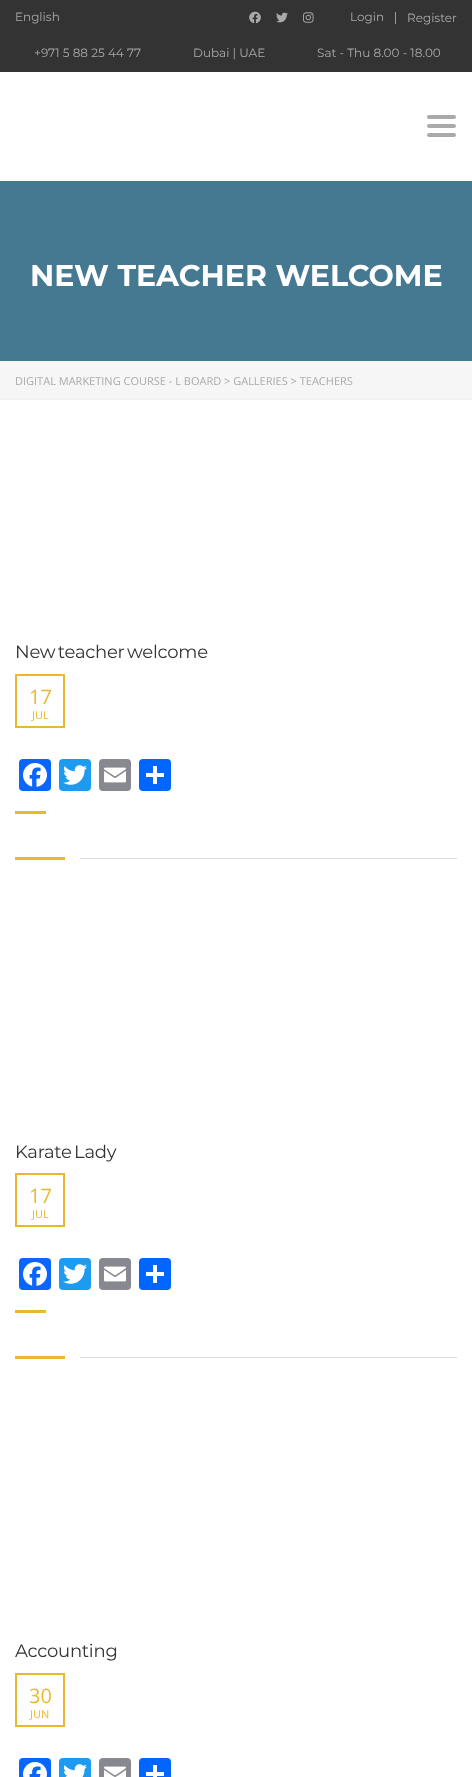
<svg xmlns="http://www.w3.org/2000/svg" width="472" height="1777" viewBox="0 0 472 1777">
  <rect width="100%" height="100%" fill="#ffffff"/>
  <rect x="0" y="0" width="472" height="72" fill="#333333"/>
  <text x="15" y="21" font-family="Montserrat" font-size="12" fill="#aaaaaa">English</text>
  <image x="249" y="11" width="12" height="13" href="img1.png"/>
  <image x="276" y="12" width="12" height="11" href="img2.png"/>
  <image x="303" y="12" width="11" height="11" href="img3.png"/>
  <text x="350" y="21" font-family="Montserrat" font-size="12" fill="#aaaaaa">Login</text>
  <rect x="395" y="12" width="1" height="12" fill="#9a9a9a"/>
  <text x="407" y="22" font-family="Montserrat" font-size="12" fill="#aaaaaa">Register</text>
  <text x="34" y="57" font-family="Montserrat" font-size="12" fill="#aaaaaa">+971 5 88 25 44 77</text>
  <text x="193" y="57" font-family="Montserrat" font-size="12" fill="#aaaaaa">Dubai | UAE</text>
  <text x="317" y="57" font-family="Montserrat" font-size="12" fill="#aaaaaa">Sat - Thu 8.00 - 18.00</text>
  <rect x="427" y="115" width="29" height="4" rx="2" fill="#aaaaaa"/>
  <rect x="427" y="124" width="29" height="4" rx="2" fill="#aaaaaa"/>
  <rect x="427" y="133" width="29" height="4" rx="2" fill="#aaaaaa"/>
  <rect x="0" y="181" width="472" height="180" fill="#457992"/>
  <text x="30" y="286" font-family="Montserrat" font-size="30" font-weight="bold" fill="#ffffff">NEW TEACHER WELCOME</text>
  <rect x="0" y="361" width="472" height="38" fill="#f6f6f6"/>
  <rect x="0" y="399" width="472" height="1" fill="#f0f2f5"/>
  <text x="15" y="385" font-family="Open Sans" font-size="11" fill="#aaaaaa">DIGITAL MARKETING COURSE - L BOARD &gt; GALLERIES &gt; TEACHERS</text>
  <text x="15" y="658" word-spacing="-2" font-family="Montserrat" font-size="18" letter-spacing="-0.25" fill="#333333">New teacher welcome</text>
  <rect x="16" y="675" width="48" height="52" fill="none" stroke="#eab830" stroke-width="2"/>
  <text x="29" y="704" font-family="Open Sans" font-size="20" fill="#eab830">17</text>
  <text x="32" y="719" font-family="Open Sans" font-size="11" fill="#eab830">JUL</text>
  <rect x="19" y="759" width="32" height="32" rx="4" fill="#0866ff"/>
  <image x="23" y="763" width="24" height="24" href="img4.png"/>
  <rect x="59" y="759" width="32" height="32" rx="4" fill="#1d9bf0"/>
  <image x="63" y="765" width="24" height="20" href="img5.png"/>
  <rect x="99" y="759" width="32" height="32" rx="4" fill="#888990"/>
  <image x="104" y="767" width="22" height="16" href="img6.png"/>
  <rect x="139" y="759" width="32" height="32" rx="4" fill="#0166ff"/>
  <rect x="153" y="766" width="4" height="18" fill="#ffffff"/>
  <rect x="146" y="773" width="18" height="4" fill="#ffffff"/>
  <rect x="15" y="811" width="31" height="3" fill="#eab830"/>
  <rect x="15" y="857" width="50" height="3" fill="#eab830"/>
  <rect x="80" y="858" width="377" height="1" fill="#dcdcdc"/>
  <text x="15" y="1158" word-spacing="-2" font-family="Montserrat" font-size="18" letter-spacing="-0.25" fill="#333333">Karate Lady</text>
  <rect x="16" y="1174" width="48" height="52" fill="none" stroke="#eab830" stroke-width="2"/>
  <text x="29" y="1203" font-family="Open Sans" font-size="20" fill="#eab830">17</text>
  <text x="32" y="1218" font-family="Open Sans" font-size="11" fill="#eab830">JUL</text>
  <rect x="19" y="1258" width="32" height="32" rx="4" fill="#0866ff"/>
  <image x="23" y="1262" width="24" height="24" href="img4.png"/>
  <rect x="59" y="1258" width="32" height="32" rx="4" fill="#1d9bf0"/>
  <image x="63" y="1264" width="24" height="20" href="img5.png"/>
  <rect x="99" y="1258" width="32" height="32" rx="4" fill="#888990"/>
  <image x="104" y="1266" width="22" height="16" href="img6.png"/>
  <rect x="139" y="1258" width="32" height="32" rx="4" fill="#0166ff"/>
  <rect x="153" y="1265" width="4" height="18" fill="#ffffff"/>
  <rect x="146" y="1272" width="18" height="4" fill="#ffffff"/>
  <rect x="15" y="1310" width="31" height="3" fill="#eab830"/>
  <rect x="15" y="1356" width="50" height="3" fill="#eab830"/>
  <rect x="80" y="1357" width="377" height="1" fill="#dcdcdc"/>
  <text x="15" y="1657" font-family="Montserrat" font-size="18" letter-spacing="-0.25" fill="#333333">Accounting</text>
  <rect x="16" y="1674" width="48" height="52" fill="none" stroke="#eab830" stroke-width="2"/>
  <text x="29" y="1703" font-family="Open Sans" font-size="20" fill="#eab830">30</text>
  <text x="30" y="1718" font-family="Open Sans" font-size="11" fill="#eab830">JUN</text>
  <rect x="19" y="1758" width="32" height="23" rx="4" fill="#0866ff"/>
  <image x="23" y="1762" width="24" height="15" href="img7.png"/>
  <rect x="59" y="1758" width="32" height="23" rx="4" fill="#1d9bf0"/>
  <image x="64" y="1764" width="23" height="13" href="img8.png"/>
  <rect x="99" y="1758" width="32" height="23" rx="4" fill="#888990"/>
  <image x="104" y="1766" width="22" height="11" href="img9.png"/>
  <rect x="139" y="1758" width="32" height="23" rx="4" fill="#0166ff"/>
  <rect x="153" y="1765" width="4" height="12" fill="#ffffff"/>
  <rect x="146" y="1772" width="18" height="4" fill="#ffffff"/>
</svg>
